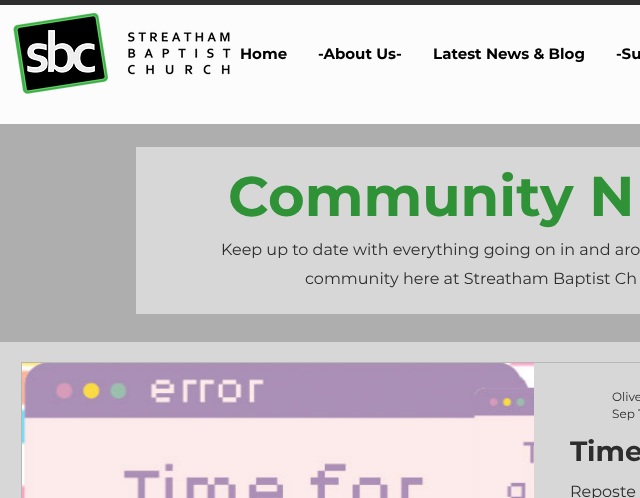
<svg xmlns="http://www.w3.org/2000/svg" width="640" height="498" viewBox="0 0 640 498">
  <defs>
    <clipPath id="clip1"><rect x="570" y="434" width="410" height="34"/></clipPath>
  </defs>
  <rect width="100%" height="100%" fill="#aeaeae"/>
  <rect x="0" y="5" width="640" height="119" fill="#fcfcfc"/>
  <rect x="0" y="0" width="640" height="5" fill="#2f2e2e"/>
  <image x="13" y="12" width="218" height="82" href="img1.png"/>
  <text x="240" y="59" font-family="Montserrat" font-size="15" font-weight="bold" fill="#000000">Home</text>
  <text x="318" y="59" font-family="Montserrat" font-size="15" font-weight="bold" fill="#000000">-About Us-</text>
  <text x="433" y="59" font-family="Montserrat" font-size="15" font-weight="bold" fill="#000000">Latest News &amp; Blog</text>
  <text x="616" y="59" font-family="Montserrat" font-size="15" font-weight="bold" fill="#000000">-Su</text>
  <rect x="136" y="147" width="504" height="167" fill="#d7d7d7"/>
  <text x="228" y="216" font-family="Montserrat" font-size="56" font-weight="bold" fill="#2f9237">Community N</text>
  <text x="221" y="255" font-family="Montserrat" font-size="16" fill="#2d2d2d">Keep up to date with everything going on in and aro</text>
  <text x="305" y="284" font-family="Montserrat" font-size="16" fill="#2d2d2d">community here at Streatham Baptist Ch</text>
  <rect x="0" y="342" width="640" height="156" fill="#d7d7d7"/>
  <rect x="21.5" y="362.5" width="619" height="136" fill="none" stroke="#b8b8b8"/>
  <image x="22" y="363" width="512" height="135" href="img2.png"/>
  <text x="612" y="401" font-family="Montserrat" font-size="12" fill="#2d2d2d">Olive</text>
  <text x="612" y="418" font-family="Montserrat" font-size="12" fill="#2d2d2d">Sep 1</text>
  <g clip-path="url(#clip1)">
    <text x="570" y="461" font-family="Montserrat" font-size="28" font-weight="bold" fill="#2d2d2d">Time</text>
  </g>
  <text x="570" y="497" font-family="Montserrat" font-size="16" fill="#2d2d2d">Reposte</text>
</svg>
